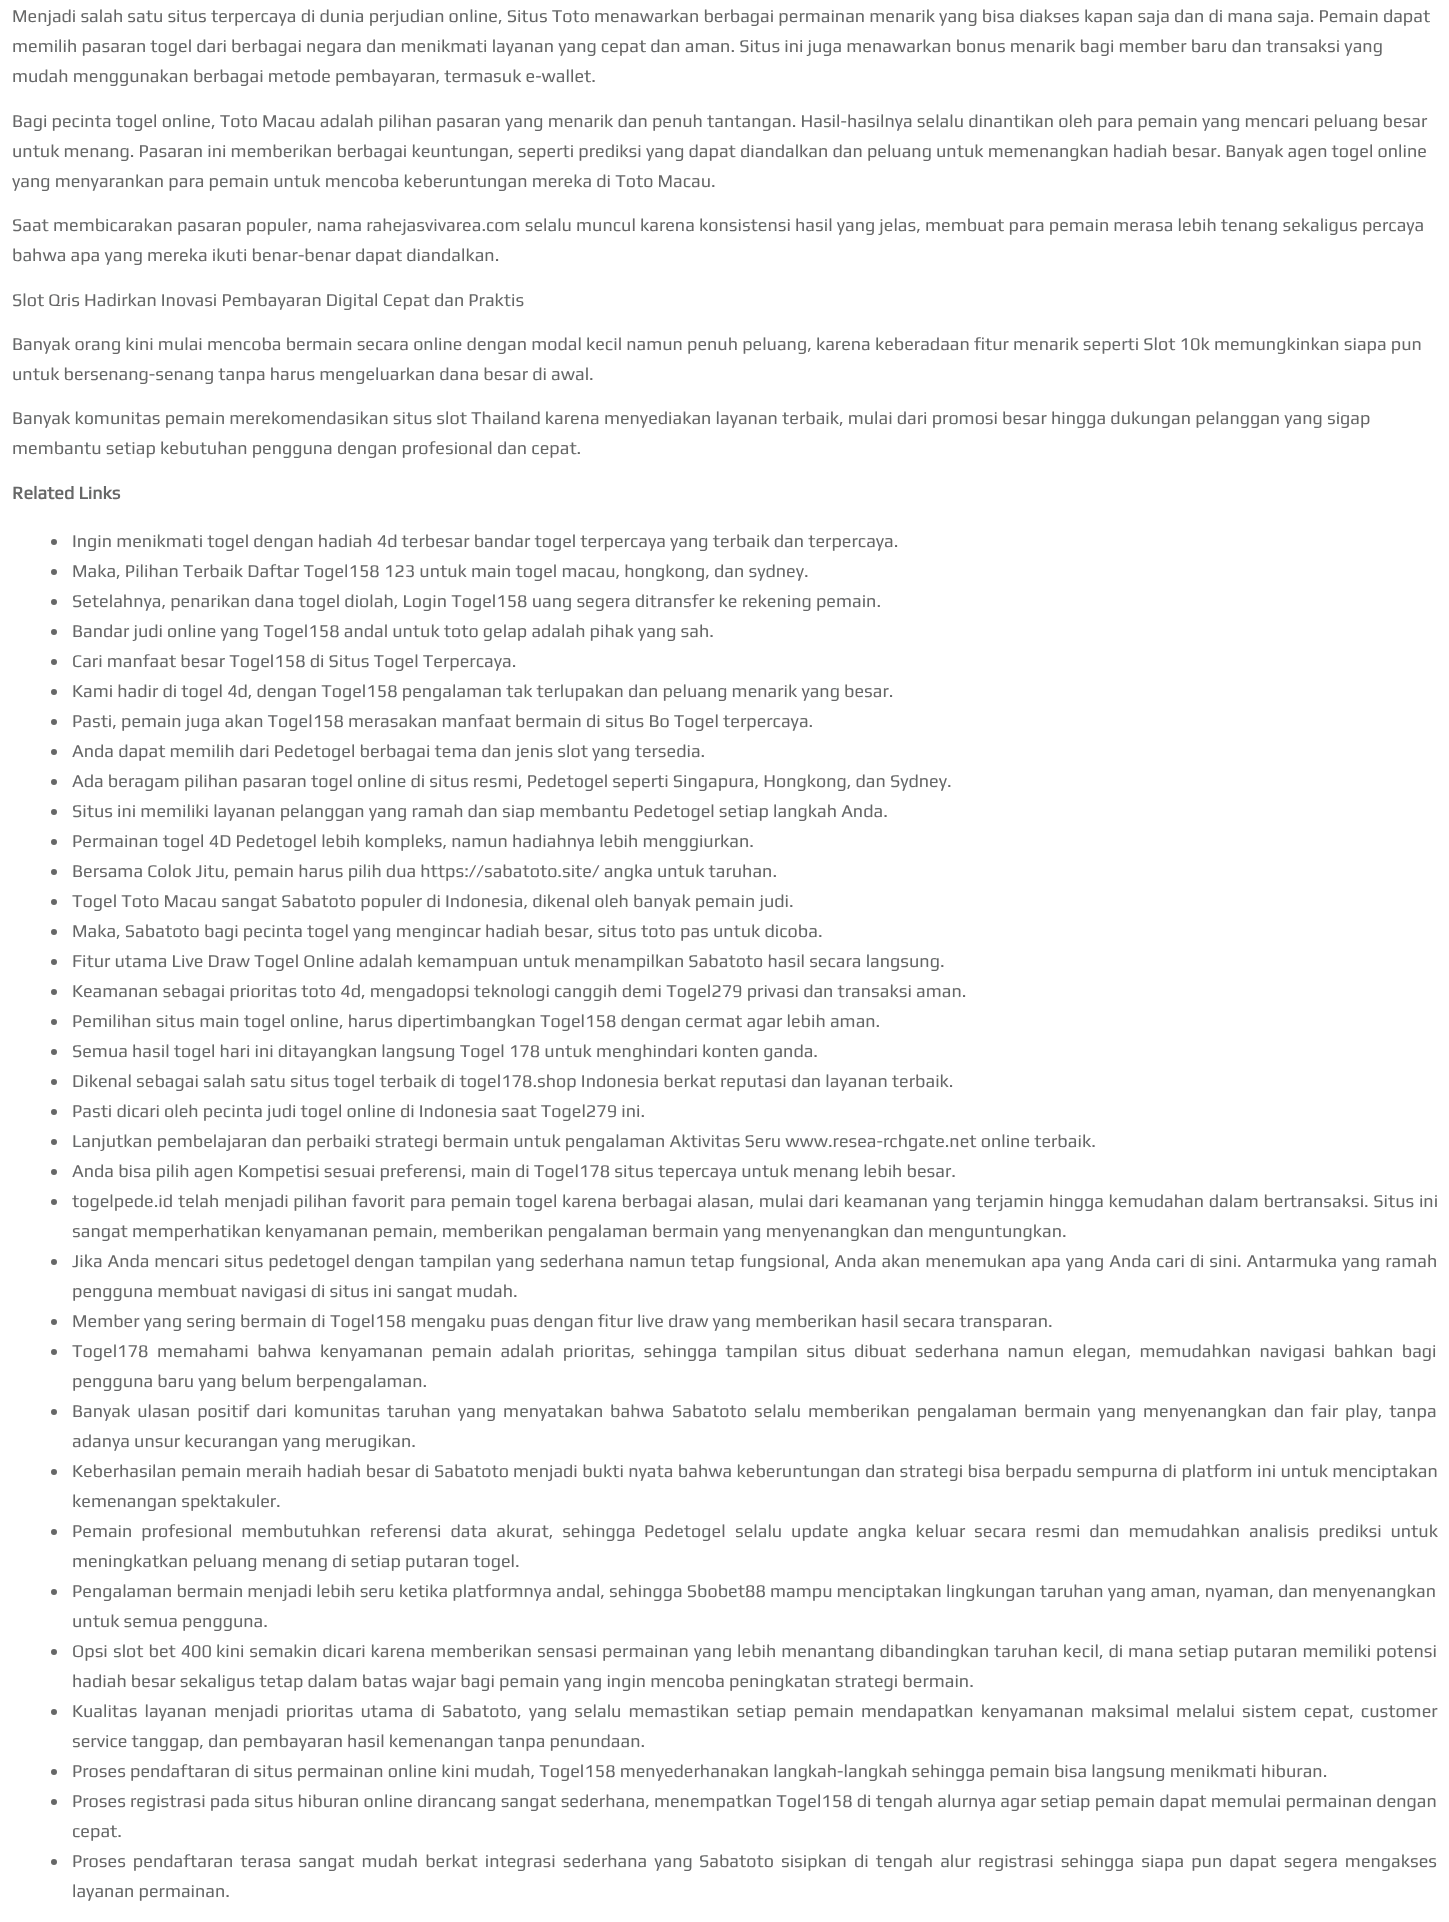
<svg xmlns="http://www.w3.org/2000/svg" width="1449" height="1922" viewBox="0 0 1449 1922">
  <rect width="100%" height="100%" fill="#ffffff"/>
  <text x="12" y="22" font-family="Play" font-size="18" fill="#666767">Menjadi salah satu situs terpercaya di dunia perjudian online, Situs Toto menawarkan berbagai permainan menarik yang bisa diakses kapan saja dan di mana saja. Pemain dapat</text>
  <text x="12" y="52" font-family="Play" font-size="18" fill="#666767">memilih pasaran togel dari berbagai negara dan menikmati layanan yang cepat dan aman. Situs ini juga menawarkan bonus menarik bagi member baru dan transaksi yang</text>
  <text x="12" y="82" font-family="Play" font-size="18" fill="#666767">mudah menggunakan berbagai metode pembayaran, termasuk e-wallet.</text>
  <text x="12" y="127" font-family="Play" font-size="18" fill="#666767">Bagi pecinta togel online, Toto Macau adalah pilihan pasaran yang menarik dan penuh tantangan. Hasil-hasilnya selalu dinantikan oleh para pemain yang mencari peluang besar</text>
  <text x="12" y="157" font-family="Play" font-size="18" fill="#666767">untuk menang. Pasaran ini memberikan berbagai keuntungan, seperti prediksi yang dapat diandalkan dan peluang untuk memenangkan hadiah besar. Banyak agen togel online</text>
  <text x="12" y="187" font-family="Play" font-size="18" fill="#666767">yang menyarankan para pemain untuk mencoba keberuntungan mereka di Toto Macau.</text>
  <text x="12" y="231" font-family="Play" font-size="18" fill="#666767">Saat membicarakan pasaran populer, nama rahejasvivarea.com selalu muncul karena konsistensi hasil yang jelas, membuat para pemain merasa lebih tenang sekaligus percaya</text>
  <text x="12" y="261" font-family="Play" font-size="18" fill="#666767">bahwa apa yang mereka ikuti benar-benar dapat diandalkan.</text>
  <text x="12" y="306" font-family="Play" font-size="18" fill="#666767">Slot Qris Hadirkan Inovasi Pembayaran Digital Cepat dan Praktis</text>
  <text x="12" y="350" font-family="Play" font-size="18" fill="#666767">Banyak orang kini mulai mencoba bermain secara online dengan modal kecil namun penuh peluang, karena keberadaan fitur menarik seperti Slot 10k memungkinkan siapa pun</text>
  <text x="12" y="380" font-family="Play" font-size="18" fill="#666767">untuk bersenang-senang tanpa harus mengeluarkan dana besar di awal.</text>
  <text x="12" y="424" font-family="Play" font-size="18" fill="#666767">Banyak komunitas pemain merekomendasikan situs slot Thailand karena menyediakan layanan terbaik, mulai dari promosi besar hingga dukungan pelanggan yang sigap</text>
  <text x="12" y="454" font-family="Play" font-size="18" fill="#666767">membantu setiap kebutuhan pengguna dengan profesional dan cepat.</text>
  <text x="12" y="499" font-family="Play" font-size="18" font-weight="bold" fill="#666767">Related Links</text>
  <circle cx="54" cy="542" r="3" fill="#666767"/>
  <text x="72" y="547" font-family="Play" font-size="18" fill="#666767">Ingin menikmati togel dengan hadiah 4d terbesar bandar togel terpercaya yang terbaik dan terpercaya.</text>
  <circle cx="54" cy="572" r="3" fill="#666767"/>
  <text x="72" y="577" font-family="Play" font-size="18" fill="#666767">Maka, Pilihan Terbaik Daftar Togel158 123 untuk main togel macau, hongkong, dan sydney.</text>
  <circle cx="54" cy="602" r="3" fill="#666767"/>
  <text x="72" y="607" font-family="Play" font-size="18" fill="#666767">Setelahnya, penarikan dana togel diolah, Login Togel158 uang segera ditransfer ke rekening pemain.</text>
  <circle cx="54" cy="632" r="3" fill="#666767"/>
  <text x="72" y="637" font-family="Play" font-size="18" fill="#666767">Bandar judi online yang Togel158 andal untuk toto gelap adalah pihak yang sah.</text>
  <circle cx="54" cy="662" r="3" fill="#666767"/>
  <text x="72" y="667" font-family="Play" font-size="18" fill="#666767">Cari manfaat besar Togel158 di Situs Togel Terpercaya.</text>
  <circle cx="54" cy="692" r="3" fill="#666767"/>
  <text x="72" y="697" font-family="Play" font-size="18" fill="#666767">Kami hadir di togel 4d, dengan Togel158 pengalaman tak terlupakan dan peluang menarik yang besar.</text>
  <circle cx="54" cy="722" r="3" fill="#666767"/>
  <text x="72" y="727" font-family="Play" font-size="18" fill="#666767">Pasti, pemain juga akan Togel158 merasakan manfaat bermain di situs Bo Togel terpercaya.</text>
  <circle cx="54" cy="752" r="3" fill="#666767"/>
  <text x="72" y="757" font-family="Play" font-size="18" fill="#666767">Anda dapat memilih dari Pedetogel berbagai tema dan jenis slot yang tersedia.</text>
  <circle cx="54" cy="782" r="3" fill="#666767"/>
  <text x="72" y="787" font-family="Play" font-size="18" fill="#666767">Ada beragam pilihan pasaran togel online di situs resmi, Pedetogel seperti Singapura, Hongkong, dan Sydney.</text>
  <circle cx="54" cy="812" r="3" fill="#666767"/>
  <text x="72" y="817" font-family="Play" font-size="18" fill="#666767">Situs ini memiliki layanan pelanggan yang ramah dan siap membantu Pedetogel setiap langkah Anda.</text>
  <circle cx="54" cy="842" r="3" fill="#666767"/>
  <text x="72" y="847" font-family="Play" font-size="18" fill="#666767">Permainan togel 4D Pedetogel lebih kompleks, namun hadiahnya lebih menggiurkan.</text>
  <circle cx="54" cy="872" r="3" fill="#666767"/>
  <text x="72" y="877" font-family="Play" font-size="18" fill="#666767">Bersama Colok Jitu, pemain harus pilih dua https://sabatoto.site/ angka untuk taruhan.</text>
  <circle cx="54" cy="902" r="3" fill="#666767"/>
  <text x="72" y="907" font-family="Play" font-size="18" fill="#666767">Togel Toto Macau sangat Sabatoto populer di Indonesia, dikenal oleh banyak pemain judi.</text>
  <circle cx="54" cy="932" r="3" fill="#666767"/>
  <text x="72" y="937" font-family="Play" font-size="18" fill="#666767">Maka, Sabatoto bagi pecinta togel yang mengincar hadiah besar, situs toto pas untuk dicoba.</text>
  <circle cx="54" cy="962" r="3" fill="#666767"/>
  <text x="72" y="967" font-family="Play" font-size="18" fill="#666767">Fitur utama Live Draw Togel Online adalah kemampuan untuk menampilkan Sabatoto hasil secara langsung.</text>
  <circle cx="54" cy="992" r="3" fill="#666767"/>
  <text x="72" y="997" font-family="Play" font-size="18" fill="#666767">Keamanan sebagai prioritas toto 4d, mengadopsi teknologi canggih demi Togel279 privasi dan transaksi aman.</text>
  <circle cx="54" cy="1022" r="3" fill="#666767"/>
  <text x="72" y="1027" font-family="Play" font-size="18" fill="#666767">Pemilihan situs main togel online, harus dipertimbangkan Togel158 dengan cermat agar lebih aman.</text>
  <circle cx="54" cy="1052" r="3" fill="#666767"/>
  <text x="72" y="1057" font-family="Play" font-size="18" fill="#666767">Semua hasil togel hari ini ditayangkan langsung Togel 178 untuk menghindari konten ganda.</text>
  <circle cx="54" cy="1082" r="3" fill="#666767"/>
  <text x="72" y="1087" font-family="Play" font-size="18" fill="#666767">Dikenal sebagai salah satu situs togel terbaik di togel178.shop Indonesia berkat reputasi dan layanan terbaik.</text>
  <circle cx="54" cy="1112" r="3" fill="#666767"/>
  <text x="72" y="1117" font-family="Play" font-size="18" fill="#666767">Pasti dicari oleh pecinta judi togel online di Indonesia saat Togel279 ini.</text>
  <circle cx="54" cy="1142" r="3" fill="#666767"/>
  <text x="72" y="1147" font-family="Play" font-size="18" fill="#666767">Lanjutkan pembelajaran dan perbaiki strategi bermain untuk pengalaman Aktivitas Seru www.resea-rchgate.net online terbaik.</text>
  <circle cx="54" cy="1172" r="3" fill="#666767"/>
  <text x="72" y="1177" font-family="Play" font-size="18" fill="#666767">Anda bisa pilih agen Kompetisi sesuai preferensi, main di Togel178 situs tepercaya untuk menang lebih besar.</text>
  <circle cx="54" cy="1202" r="3" fill="#666767"/>
  <text x="72" y="1207" font-family="Play" font-size="18" fill="#666767">togelpede.id</text>
  <text x="178" y="1207" word-spacing="0.5" font-family="Play" font-size="18" fill="#666767">telah menjadi pilihan favorit para pemain togel karena berbagai alasan, mulai dari keamanan yang terjamin hingga kemudahan dalam bertransaksi. Situs ini</text>
  <text x="72" y="1237" font-family="Play" font-size="18" fill="#666767">sangat memperhatikan kenyamanan pemain, memberikan pengalaman bermain yang menyenangkan dan menguntungkan.</text>
  <circle cx="54" cy="1262" r="3" fill="#666767"/>
  <text x="72" y="1267" word-spacing="0.7" font-family="Play" font-size="18" fill="#666767">Jika Anda mencari</text>
  <text x="224" y="1267" word-spacing="0.7" font-family="Play" font-size="18" fill="#666767">situs pedetogel</text>
  <text x="354" y="1267" word-spacing="0.7" font-family="Play" font-size="18" fill="#666767">dengan tampilan yang sederhana namun tetap fungsional, Anda akan menemukan apa yang Anda cari di sini. Antarmuka yang ramah</text>
  <text x="72" y="1297" font-family="Play" font-size="18" fill="#666767">pengguna membuat navigasi di situs ini sangat mudah.</text>
  <circle cx="54" cy="1322" r="3" fill="#666767"/>
  <text x="72" y="1327" font-family="Play" font-size="18" fill="#666767">Member yang sering bermain di Togel158 mengaku puas dengan fitur live draw yang memberikan hasil secara transparan.</text>
  <circle cx="54" cy="1352" r="3" fill="#666767"/>
  <text x="72" y="1357" font-family="Play" font-size="18" fill="#666767">Togel178</text>
  <text x="157" y="1357" word-spacing="4.25" font-family="Play" font-size="18" fill="#666767">memahami bahwa kenyamanan pemain adalah prioritas, sehingga tampilan situs dibuat sederhana namun elegan, memudahkan navigasi bahkan bagi</text>
  <text x="72" y="1387" font-family="Play" font-size="18" fill="#666767">pengguna baru yang belum berpengalaman.</text>
  <circle cx="54" cy="1412" r="3" fill="#666767"/>
  <text x="72" y="1417" word-spacing="2.75" font-family="Play" font-size="18" fill="#666767">Banyak ulasan positif dari komunitas taruhan yang menyatakan bahwa</text>
  <text x="672" y="1417" font-family="Play" font-size="18" fill="#666767">Sabatoto</text>
  <text x="754" y="1417" word-spacing="2.75" font-family="Play" font-size="18" fill="#666767">selalu memberikan pengalaman bermain yang menyenangkan dan fair play, tanpa</text>
  <text x="72" y="1447" font-family="Play" font-size="18" fill="#666767">adanya unsur kecurangan yang merugikan.</text>
  <circle cx="54" cy="1472" r="3" fill="#666767"/>
  <text x="72" y="1477" word-spacing="0.25" font-family="Play" font-size="18" fill="#666767">Keberhasilan pemain meraih hadiah besar di</text>
  <text x="434" y="1477" font-family="Play" font-size="18" fill="#666767">Sabatoto</text>
  <text x="513" y="1477" word-spacing="0.25" font-family="Play" font-size="18" fill="#666767">menjadi bukti nyata bahwa keberuntungan dan strategi bisa berpadu sempurna di platform ini untuk menciptakan</text>
  <text x="72" y="1507" font-family="Play" font-size="18" fill="#666767">kemenangan spektakuler.</text>
  <circle cx="54" cy="1532" r="3" fill="#666767"/>
  <text x="72" y="1537" word-spacing="4.75" font-family="Play" font-size="18" fill="#666767">Pemain profesional membutuhkan referensi data akurat, sehingga</text>
  <text x="644" y="1537" font-family="Play" font-size="18" fill="#666767">Pedetogel</text>
  <text x="735" y="1537" word-spacing="4.75" font-family="Play" font-size="18" fill="#666767">selalu update angka keluar secara resmi dan memudahkan analisis prediksi untuk</text>
  <text x="72" y="1567" font-family="Play" font-size="18" fill="#666767">meningkatkan peluang menang di setiap putaran togel.</text>
  <circle cx="54" cy="1592" r="3" fill="#666767"/>
  <text x="72" y="1597" font-family="Play" font-size="18" fill="#666767">Pengalaman bermain menjadi lebih seru ketika platformnya andal, sehingga Sbobet88 mampu menciptakan lingkungan taruhan yang aman, nyaman, dan menyenangkan</text>
  <text x="72" y="1627" font-family="Play" font-size="18" fill="#666767">untuk semua pengguna.</text>
  <circle cx="54" cy="1652" r="3" fill="#666767"/>
  <text x="72" y="1657" font-family="Play" font-size="18" fill="#666767">Opsi</text>
  <text x="113" y="1657" word-spacing="0.75" font-family="Play" font-size="18" fill="#666767">slot bet 400</text>
  <text x="216" y="1657" word-spacing="0.75" font-family="Play" font-size="18" fill="#666767">kini semakin dicari karena memberikan sensasi permainan yang lebih menantang dibandingkan taruhan kecil, di mana setiap putaran memiliki potensi</text>
  <text x="72" y="1687" font-family="Play" font-size="18" fill="#666767">hadiah besar sekaligus tetap dalam batas wajar bagi pemain yang ingin mencoba peningkatan strategi bermain.</text>
  <circle cx="54" cy="1712" r="3" fill="#666767"/>
  <text x="72" y="1717" word-spacing="2.9" font-family="Play" font-size="18" fill="#666767">Kualitas layanan menjadi prioritas utama di</text>
  <text x="442" y="1717" font-family="Play" font-size="18" fill="#666767">Sabatoto</text>
  <text x="517" y="1717" word-spacing="2.9" font-family="Play" font-size="18" fill="#666767">, yang selalu memastikan setiap pemain mendapatkan kenyamanan maksimal melalui sistem cepat, customer</text>
  <text x="72" y="1747" font-family="Play" font-size="18" fill="#666767">service tanggap, dan pembayaran hasil kemenangan tanpa penundaan.</text>
  <circle cx="54" cy="1772" r="3" fill="#666767"/>
  <text x="72" y="1777" font-family="Play" font-size="18" fill="#666767">Proses pendaftaran di situs permainan online kini mudah, Togel158 menyederhanakan langkah-langkah sehingga pemain bisa langsung menikmati hiburan.</text>
  <circle cx="54" cy="1802" r="3" fill="#666767"/>
  <text x="72" y="1807" font-family="Play" font-size="18" fill="#666767">Proses registrasi pada situs hiburan online dirancang sangat sederhana, menempatkan Togel158 di tengah alurnya agar setiap pemain dapat memulai permainan dengan</text>
  <text x="72" y="1837" font-family="Play" font-size="18" fill="#666767">cepat.</text>
  <circle cx="54" cy="1862" r="3" fill="#666767"/>
  <text x="72" y="1867" word-spacing="2.9" font-family="Play" font-size="18" fill="#666767">Proses pendaftaran terasa sangat mudah berkat integrasi sederhana yang</text>
  <text x="699" y="1867" font-family="Play" font-size="18" fill="#666767">Sabatoto</text>
  <text x="781" y="1867" word-spacing="2.9" font-family="Play" font-size="18" fill="#666767">sisipkan di tengah alur registrasi sehingga siapa pun dapat segera mengakses</text>
  <text x="72" y="1897" font-family="Play" font-size="18" fill="#666767">layanan permainan.</text>
</svg>
